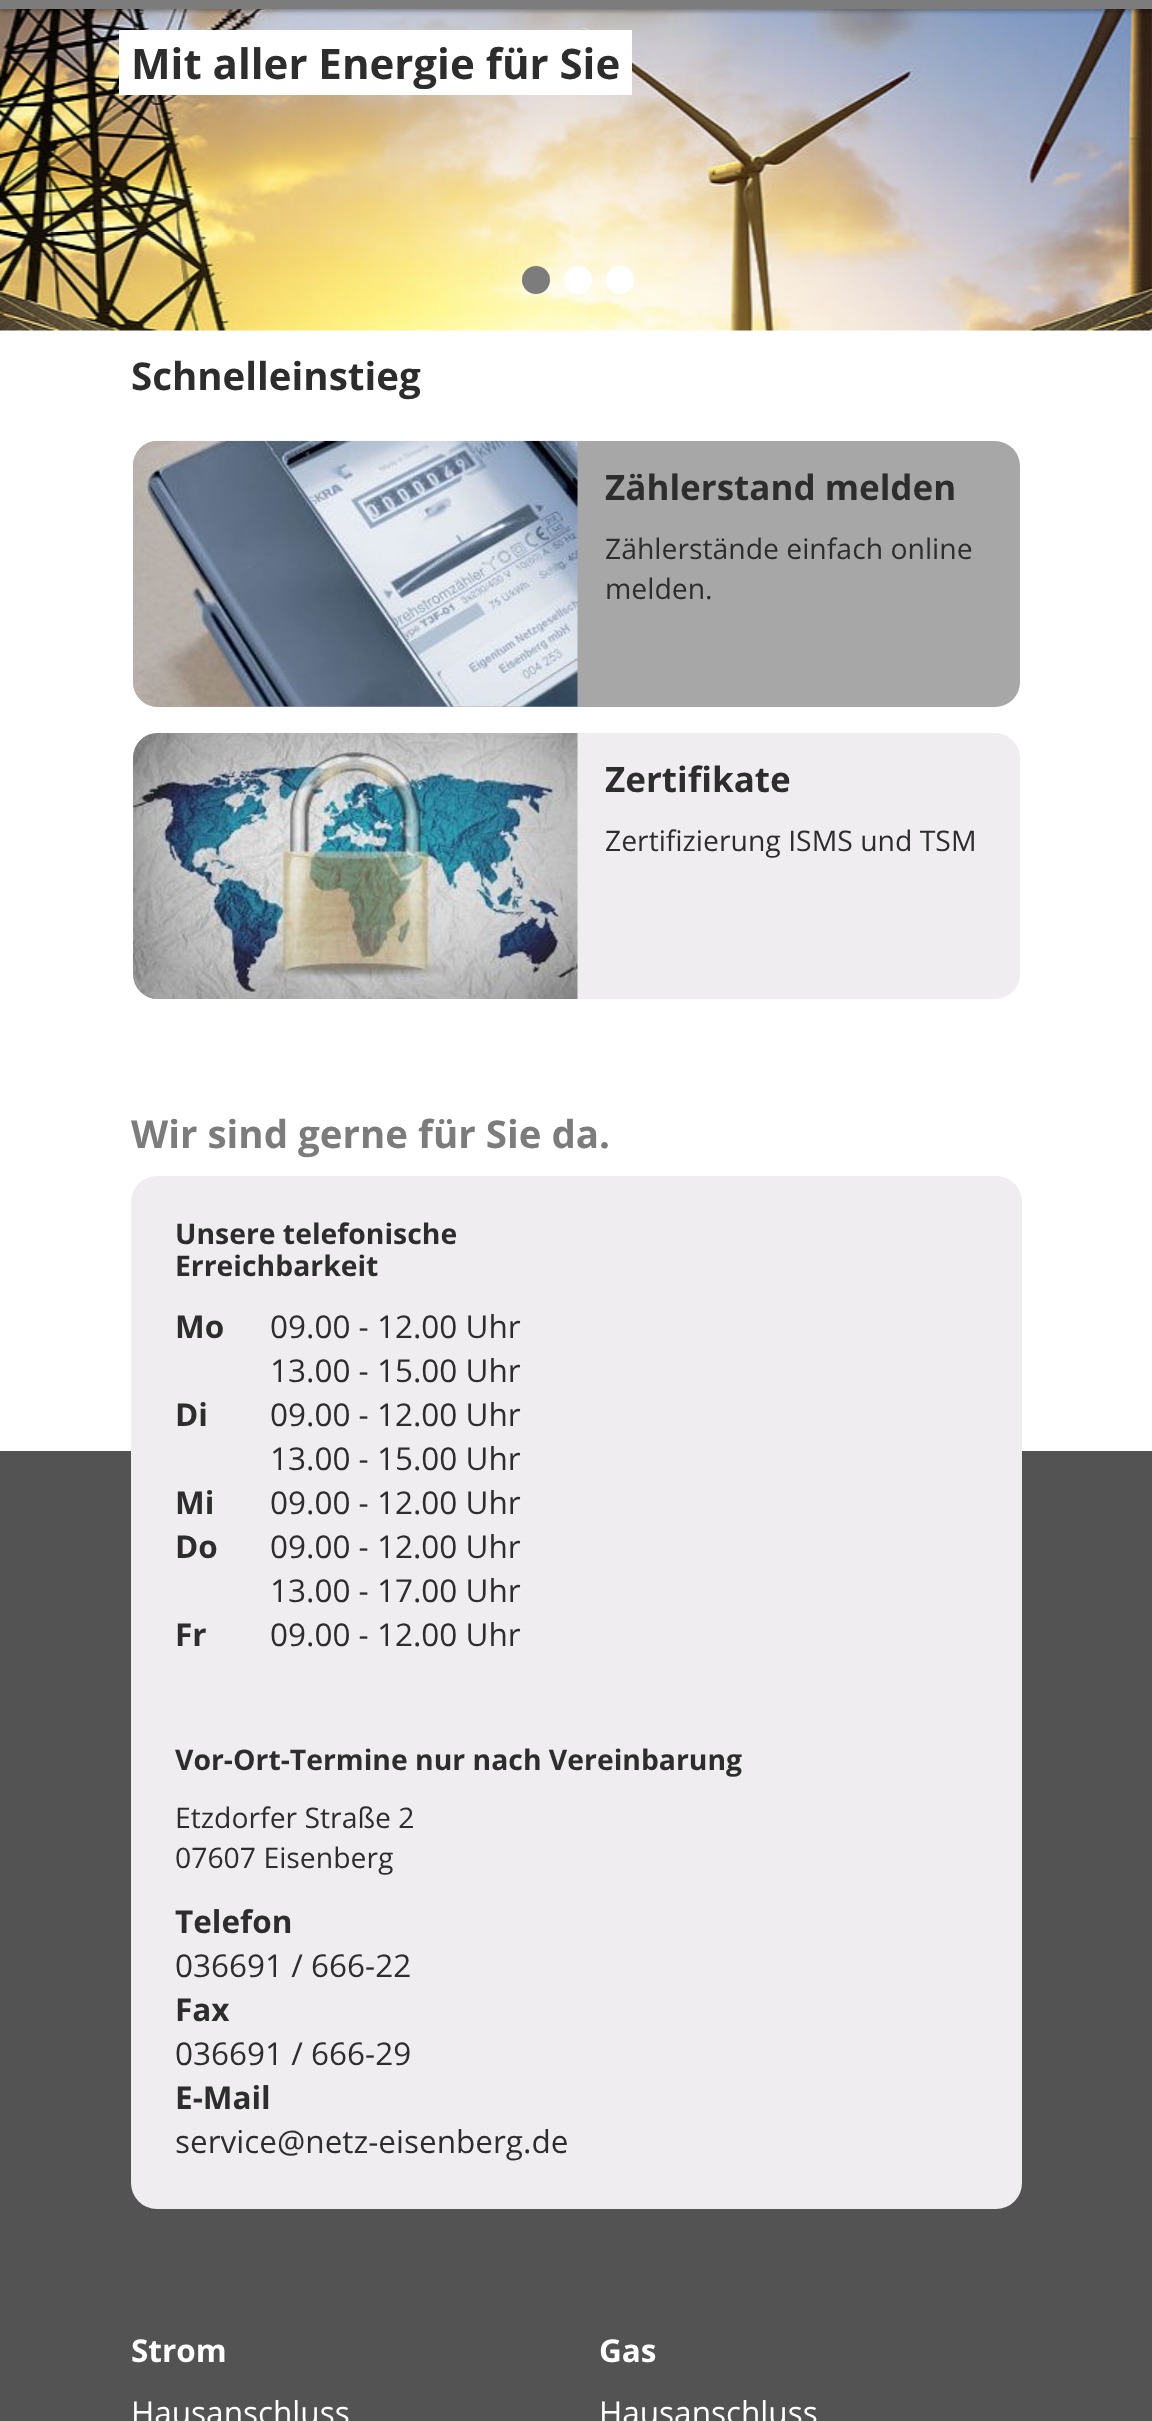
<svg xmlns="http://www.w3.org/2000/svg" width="1152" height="2421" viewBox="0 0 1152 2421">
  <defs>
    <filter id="blur1" x="-50%" y="-200%" width="200%" height="500%"><feGaussianBlur stdDeviation="2"/></filter>
    <filter id="blur2" x="-50%" y="-200%" width="200%" height="500%"><feGaussianBlur stdDeviation="2.5"/></filter>
  </defs>
  <rect width="100%" height="100%" fill="#ffffff"/>
  <image x="0" y="330" width="1" height="1" href="img2.png"/>
  <image x="0" y="9" width="1152" height="322" href="img1.png"/>
  <rect x="0" y="-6" width="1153" height="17" fill="#000000" fill-opacity="0.24" filter="url(#blur1)"/>
  <rect x="0" y="-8" width="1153" height="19" fill="#000000" fill-opacity="0.12" filter="url(#blur2)"/>
  <rect x="0" y="0" width="1152" height="9" fill="#7d7c7d"/>
  <path d="M119 30V95H614V91H131V33H614V30Z" fill="#ffffff"/>
  <path d="M137 30V33H620V91H137V95H632V30Z" fill="#ffffff"/>
  <rect x="131" y="33" width="489" height="58" fill="#ffffff"/>
  <text x="131" y="79" font-family="Open Sans" font-size="42" font-weight="bold" fill="#2e2d2e">Mit aller Energie für Sie</text>
  <circle cx="536" cy="280" r="14" fill="#7d7c7d"/>
  <circle cx="578" cy="280" r="14" fill="#ffffff"/>
  <circle cx="620" cy="280" r="14" fill="#ffffff"/>
  <text x="131" y="390" font-family="Open Sans" font-size="38.5" font-weight="bold" fill="#2e2d2e">Schnelleinstieg</text>
  <rect x="133" y="441" width="887" height="266" rx="25" fill="#a8a7a8"/>
  <image x="133" y="440" width="445" height="267" href="img3.png"/>
  <text x="605" y="500" font-family="Open Sans" font-size="35" font-weight="bold" fill="#2e2d2e">Zählerstand melden</text>
  <text x="605" y="559" font-family="Open Sans" font-size="28.35" fill="#2e2d2e">Zählerstände einfach online</text>
  <text x="605" y="599" font-family="Open Sans" font-size="28.35" fill="#2e2d2e">melden.</text>
  <rect x="133" y="733" width="887" height="266" rx="25" fill="#f0edf0"/>
  <image x="133" y="733" width="445" height="266" href="img4.png"/>
  <text x="605" y="792" font-family="Open Sans" font-size="35" font-weight="bold" fill="#2e2d2e">Zertifikate</text>
  <text x="605" y="851" font-family="Open Sans" font-size="28.35" fill="#2e2d2e">Zertifizierung ISMS und TSM</text>
  <text x="131" y="1148" font-family="Open Sans" font-size="38.5" font-weight="bold" fill="#7d7c7d">Wir sind gerne für Sie da.</text>
  <rect x="0" y="1451" width="1152" height="970" fill="#545354"/>
  <rect x="131" y="1176" width="891" height="1033" rx="26" fill="#f0edf0"/>
  <text x="175" y="1244" font-family="Open Sans" font-size="28.35" font-weight="bold" fill="#2e2d2e">Unsere telefonische</text>
  <text x="175" y="1276" font-family="Open Sans" font-size="28.35" font-weight="bold" fill="#2e2d2e">Erreichbarkeit</text>
  <text x="175" y="1338" font-family="Open Sans" font-size="31.5" font-weight="bold" fill="#2e2d2e">Mo</text>
  <text x="270" y="1338" font-family="Open Sans" font-size="31.5" fill="#2e2d2e">09.00 - 12.00 Uhr</text>
  <text x="270" y="1382" font-family="Open Sans" font-size="31.5" fill="#2e2d2e">13.00 - 15.00 Uhr</text>
  <text x="175" y="1426" font-family="Open Sans" font-size="31.5" font-weight="bold" fill="#2e2d2e">Di</text>
  <text x="270" y="1426" font-family="Open Sans" font-size="31.5" fill="#2e2d2e">09.00 - 12.00 Uhr</text>
  <text x="270" y="1470" font-family="Open Sans" font-size="31.5" fill="#2e2d2e">13.00 - 15.00 Uhr</text>
  <text x="175" y="1514" font-family="Open Sans" font-size="31.5" font-weight="bold" fill="#2e2d2e">Mi</text>
  <text x="270" y="1514" font-family="Open Sans" font-size="31.5" fill="#2e2d2e">09.00 - 12.00 Uhr</text>
  <text x="175" y="1558" font-family="Open Sans" font-size="31.5" font-weight="bold" fill="#2e2d2e">Do</text>
  <text x="270" y="1558" font-family="Open Sans" font-size="31.5" fill="#2e2d2e">09.00 - 12.00 Uhr</text>
  <text x="270" y="1602" font-family="Open Sans" font-size="31.5" fill="#2e2d2e">13.00 - 17.00 Uhr</text>
  <text x="175" y="1646" font-family="Open Sans" font-size="31.5" font-weight="bold" fill="#2e2d2e">Fr</text>
  <text x="270" y="1646" font-family="Open Sans" font-size="31.5" fill="#2e2d2e">09.00 - 12.00 Uhr</text>
  <text x="175" y="1770" font-family="Open Sans" font-size="28.35" font-weight="bold" fill="#2e2d2e">Vor-Ort-Termine nur nach Vereinbarung</text>
  <text x="175" y="1828" font-family="Open Sans" font-size="28.35" fill="#2e2d2e">Etzdorfer Straße 2</text>
  <text x="175" y="1868" font-family="Open Sans" font-size="28.35" fill="#2e2d2e">07607 Eisenberg</text>
  <text x="175" y="1933" font-family="Open Sans" font-size="31.5" font-weight="bold" fill="#2e2d2e">Telefon</text>
  <text x="175" y="1977" font-family="Open Sans" font-size="31.5" fill="#2e2d2e">036691 / 666-22</text>
  <text x="175" y="2021" font-family="Open Sans" font-size="31.5" font-weight="bold" fill="#2e2d2e">Fax</text>
  <text x="175" y="2065" font-family="Open Sans" font-size="31.5" fill="#2e2d2e">036691 / 666-29</text>
  <text x="175" y="2109" font-family="Open Sans" font-size="31.5" font-weight="bold" fill="#2e2d2e">E-Mail</text>
  <text x="175" y="2153" font-family="Open Sans" font-size="31.5" fill="#2e2d2e">service@netz-eisenberg.de</text>
  <text x="131" y="2362" font-family="Open Sans" font-size="31.5" font-weight="bold" fill="#ffffff">Strom</text>
  <text x="131" y="2424" font-family="Open Sans" font-size="31.5" fill="#ffffff">Hausanschluss</text>
  <text x="599" y="2362" font-family="Open Sans" font-size="31.5" font-weight="bold" fill="#ffffff">Gas</text>
  <text x="599" y="2424" font-family="Open Sans" font-size="31.5" fill="#ffffff">Hausanschluss</text>
</svg>
